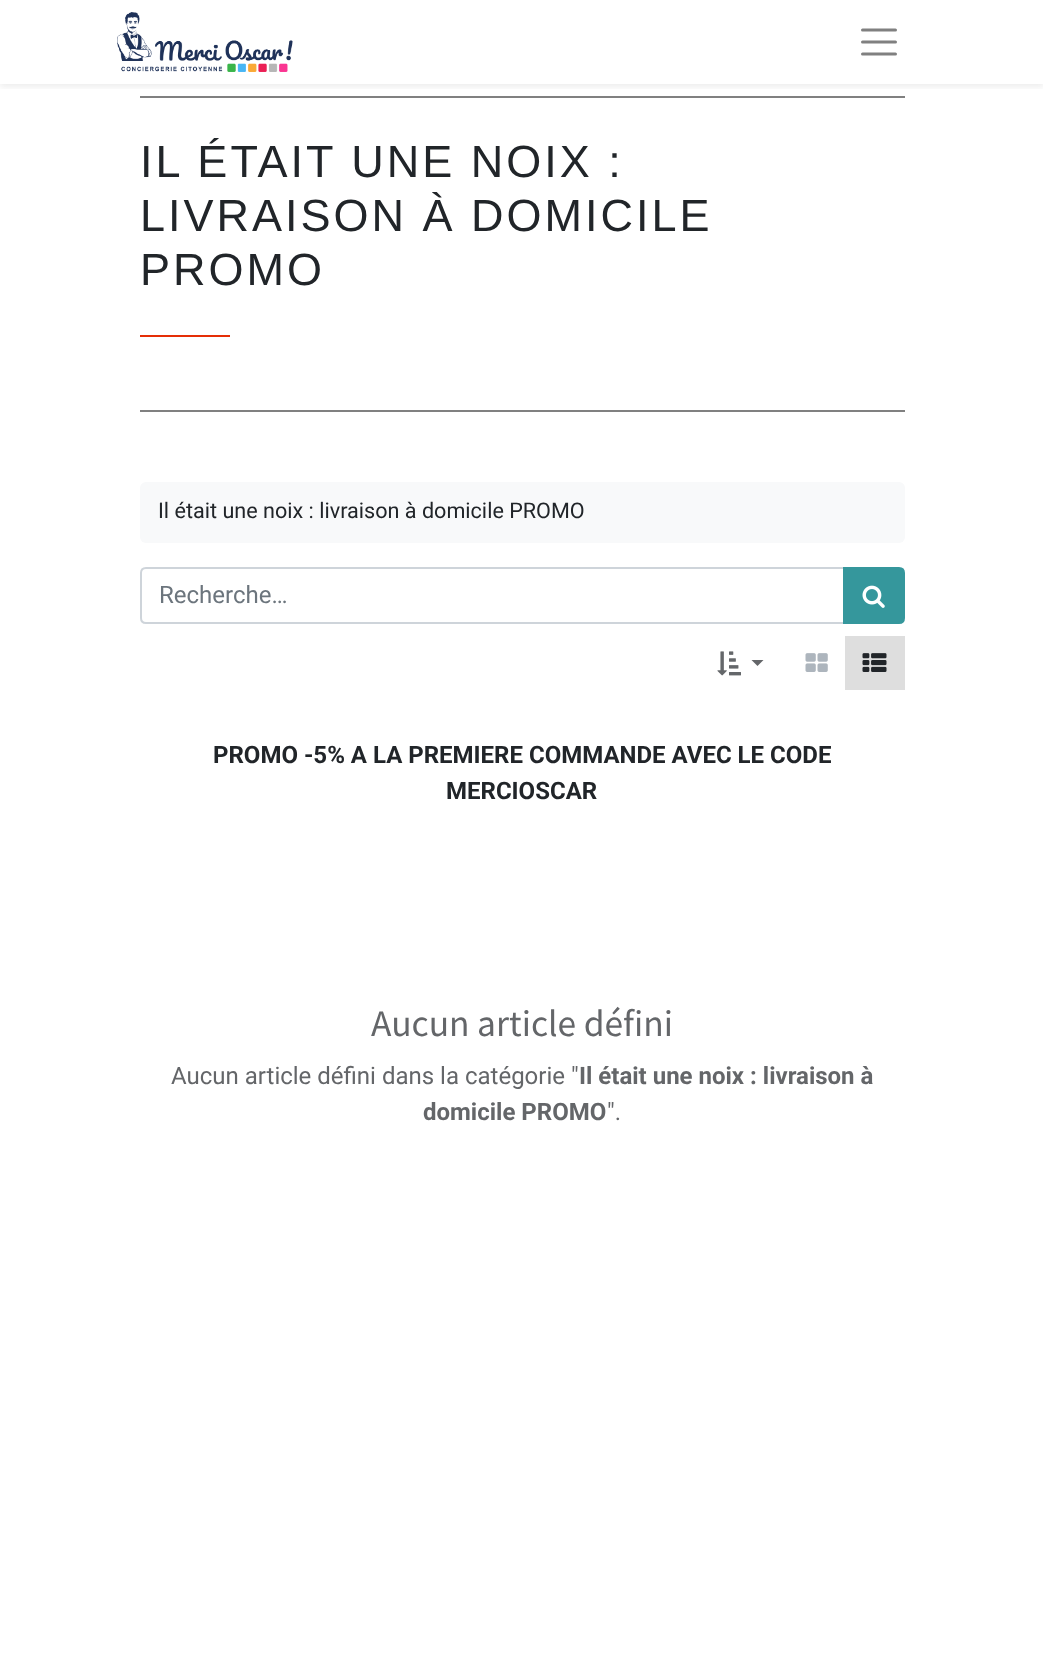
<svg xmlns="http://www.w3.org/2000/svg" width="1043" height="1667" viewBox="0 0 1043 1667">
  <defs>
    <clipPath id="clip1"><rect x="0" y="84" width="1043" height="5"/></clipPath>
    <filter id="blur1" x="-50%" y="-200%" width="200%" height="500%"><feGaussianBlur stdDeviation="3"/></filter>
  </defs>
  <rect width="100%" height="100%" fill="#ffffff"/>
  <rect x="140" y="96" width="765" height="2" fill="#808080"/>
  <g clip-path="url(#clip1)">
    <rect x="0" y="3" width="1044" height="84" fill="#000000" fill-opacity="0.07" filter="url(#blur1)"/>
  </g>
  <image x="117" y="12" width="176" height="60" href="img1.png"/>
  <path d="M862.5 30H895.5M862.5 42H895.5M862.5 54H895.5" fill="none" stroke="#808080" stroke-width="3" stroke-linecap="round"/>
  <rect x="140" y="410" width="765" height="2" fill="#808080"/>
  <text x="140" y="177" font-family="Liberation Sans" font-size="45" letter-spacing="3" fill="#212529">IL ÉTAIT UNE NOIX :</text>
  <text x="140" y="231" font-family="Liberation Sans" font-size="45" letter-spacing="3" fill="#212529">LIVRAISON À DOMICILE</text>
  <text x="140" y="285" font-family="Liberation Sans" font-size="45" letter-spacing="3" fill="#212529">PROMO</text>
  <rect x="140" y="335" width="90" height="2" fill="#e52e06"/>
  <rect x="140" y="482" width="765" height="61" rx="6" fill="#f8f9fa"/>
  <text x="158" y="518" font-family="Roboto" font-size="21.6" fill="#212529">Il était une noix : livraison à domicile PROMO</text>
  <path d="M146 568H844V623H146C143 623 141 621 141 618V573C141 570 143 568 146 568Z" fill="none" stroke="#ced4da" stroke-width="2"/>
  <text x="159" y="603" font-family="Roboto" font-size="24" fill="#6c757d">Recherche…</text>
  <path d="M844 568H899C902 568 904 570 904 573V618C904 621 902 623 899 623H844Z" fill="#35979c" stroke="#35979c" stroke-width="2"/>
  <image x="862" y="585" width="23" height="23" href="img2.png"/>
  <image x="717" y="651" width="24" height="25" href="img3.png"/>
  <path d="M751.5 660H763.5L757.5 666Z" fill="#646669"/>
  <image x="805" y="653" width="23" height="19" href="img4.png"/>
  <rect x="845" y="636" width="60" height="54" fill="#dedede"/>
  <image x="862" y="653" width="25" height="19" href="img5.png"/>
  <text x="213" y="763" font-family="Roboto" font-size="24" font-weight="bold" fill="#212529">PROMO -5% A LA PREMIERE COMMANDE AVEC LE CODE</text>
  <text x="446" y="799" font-family="Roboto" font-size="24" font-weight="bold" fill="#212529">MERCIOSCAR</text>
  <text x="371" y="1036" font-family="Source Sans Pro" font-size="37.5" fill="#646669">Aucun article défini</text>
  <text x="171" y="1084" font-family="Roboto" font-size="24" fill="#646669">Aucun article défini dans la catégorie "</text>
  <text x="579" y="1084" font-family="Roboto" font-size="24" font-weight="bold" fill="#646669">Il était une noix : livraison à</text>
  <text x="423" y="1120" font-family="Roboto" font-size="24" font-weight="bold" fill="#646669">domicile PROMO</text>
  <text x="607" y="1120" font-family="Roboto" font-size="24" fill="#646669">".</text>
</svg>
